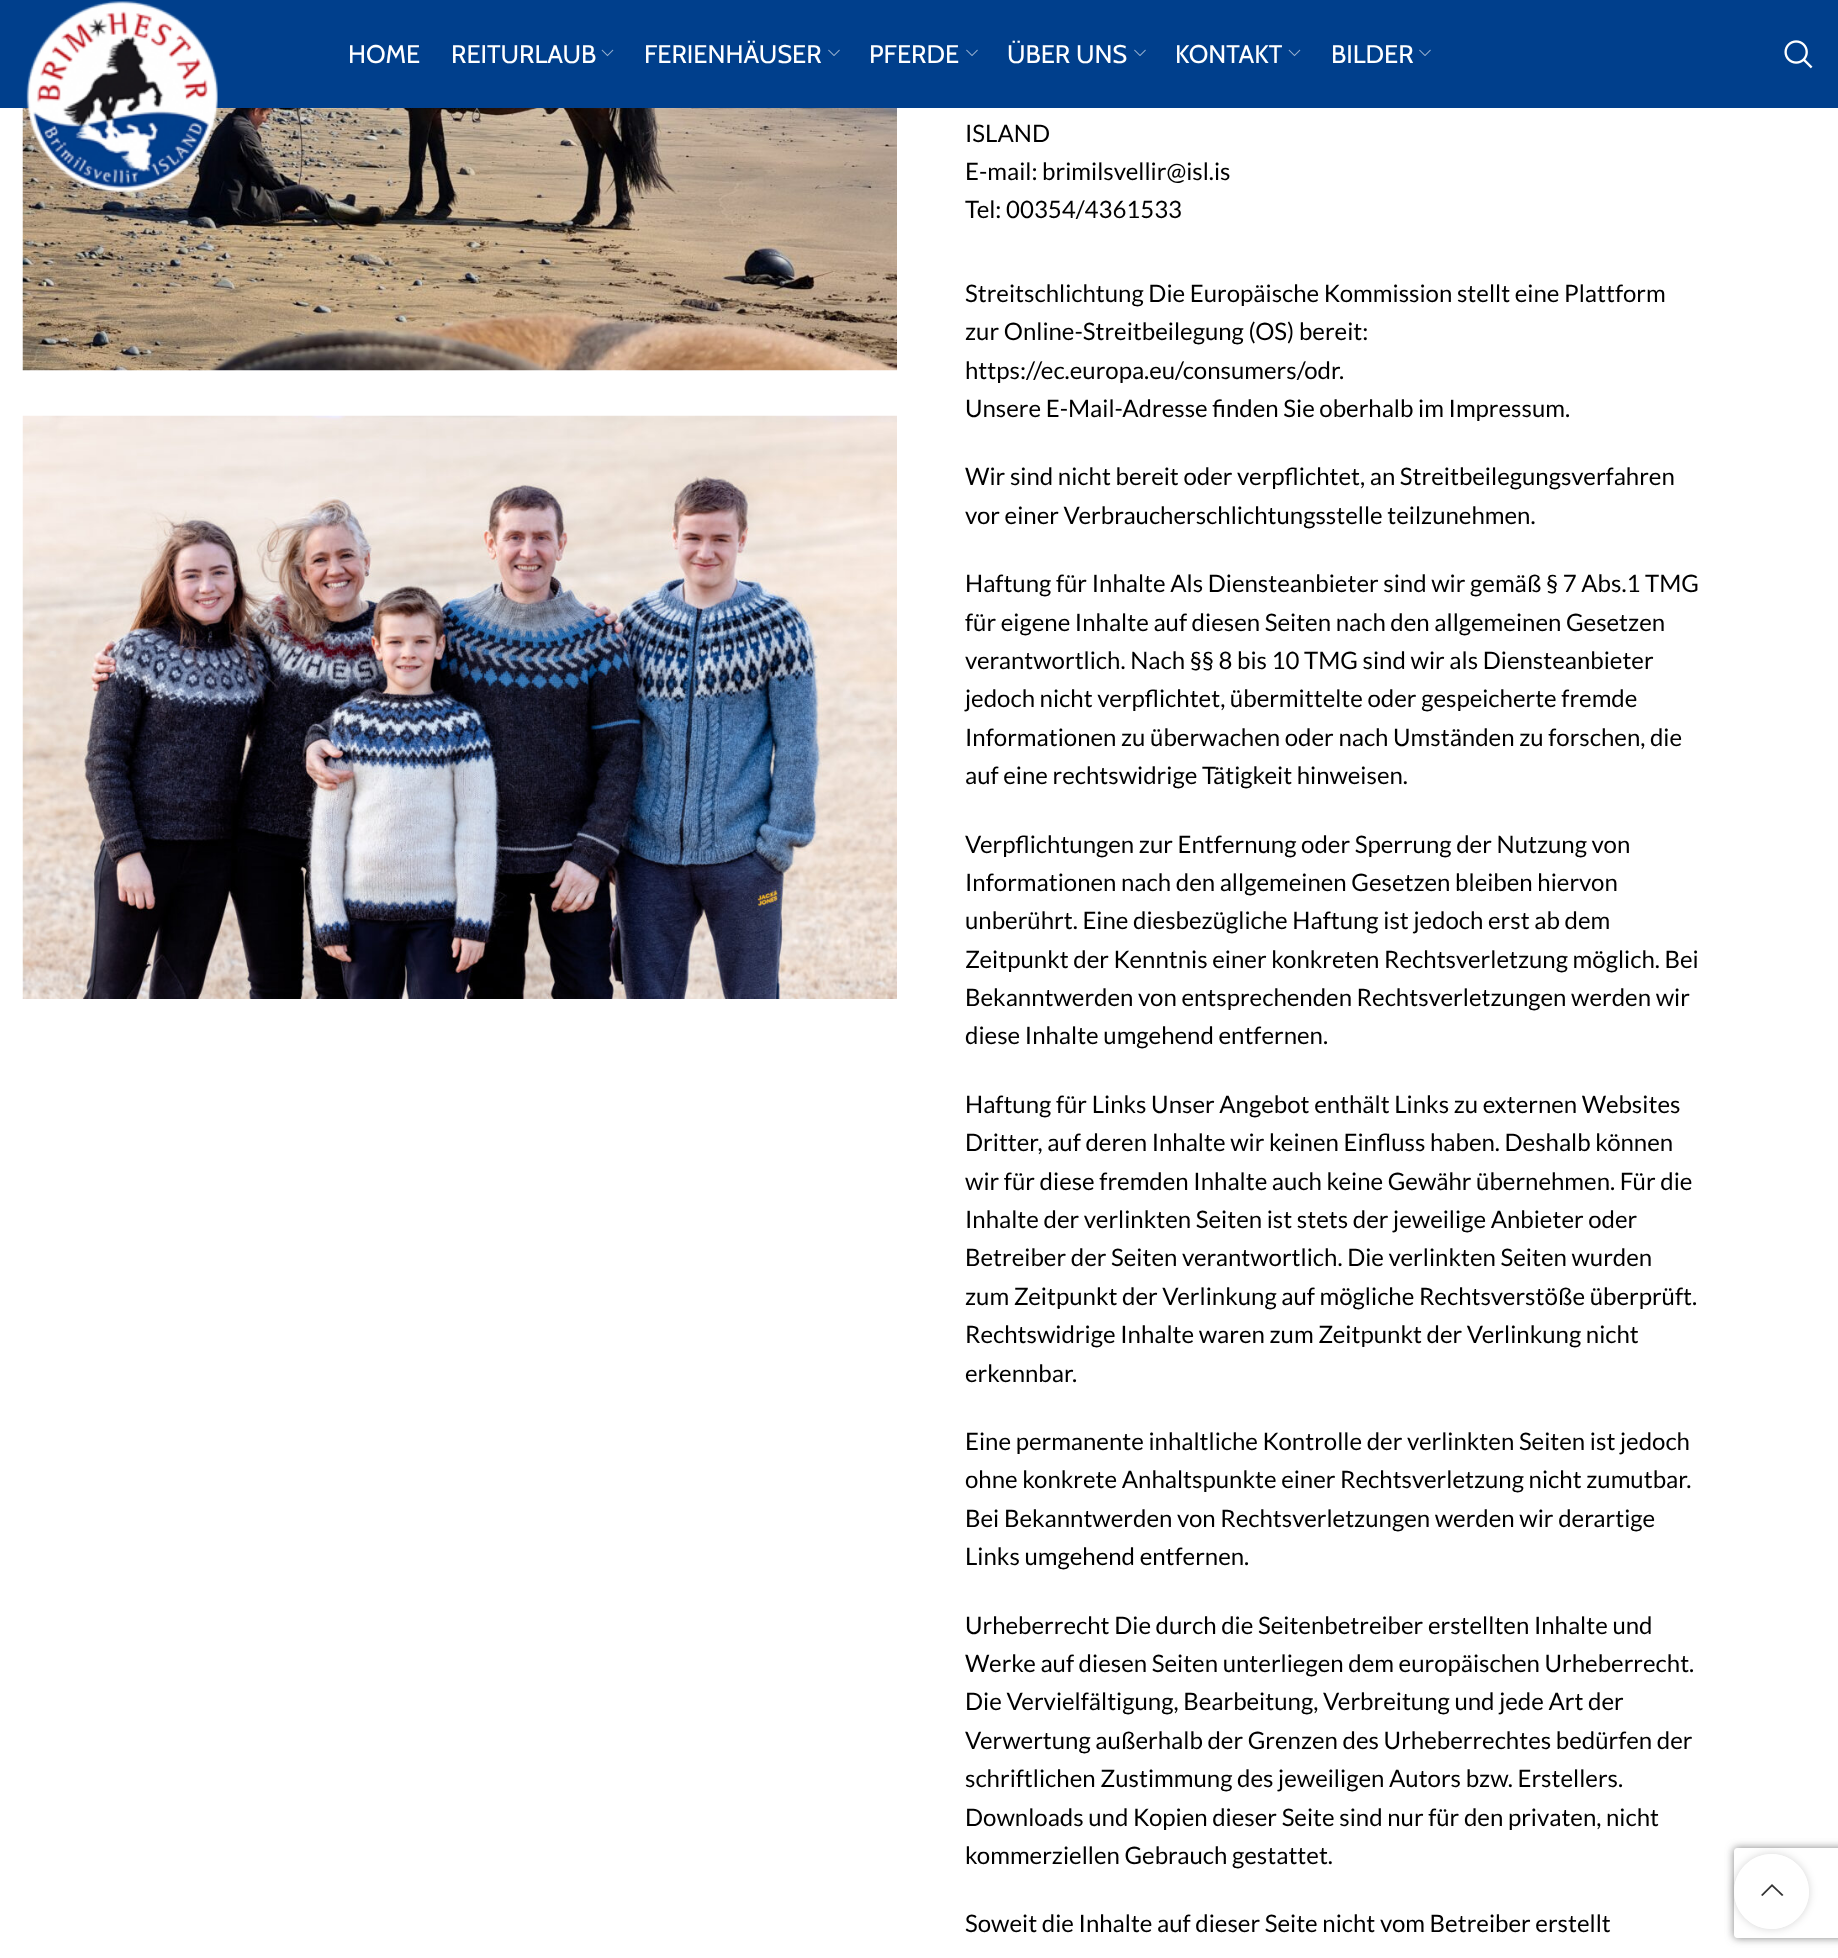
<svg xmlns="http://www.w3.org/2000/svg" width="1838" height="1958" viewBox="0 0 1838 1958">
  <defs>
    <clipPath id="clip1"><path d="M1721 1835H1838V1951H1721ZM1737 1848H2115C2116.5 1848 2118 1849.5 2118 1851V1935C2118 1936.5 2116.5 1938 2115 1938H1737C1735.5 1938 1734 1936.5 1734 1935V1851C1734 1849.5 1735.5 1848 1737 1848Z" clip-rule="evenodd"/></clipPath>
    <filter id="blur1" x="-50%" y="-200%" width="200%" height="500%"><feGaussianBlur stdDeviation="4"/></filter>
    <clipPath id="clip2"><path d="M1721 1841H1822V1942H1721ZM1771.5 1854C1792 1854 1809 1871 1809 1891.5C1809 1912 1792 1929 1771.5 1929C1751 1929 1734 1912 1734 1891.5C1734 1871 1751 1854 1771.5 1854Z" clip-rule="evenodd"/></clipPath>
  </defs>
  <rect width="100%" height="100%" fill="#ffffff"/>
  <rect x="0" y="0" width="1838" height="108" fill="#003f8c"/>
  <image x="22" y="108" width="875" height="263" href="img5.png"/>
  <image x="26" y="1" width="192" height="192" href="img1.png"/>
  <text x="348" y="63" font-family="Cabin" font-size="25.5" fill="#ffffff">HOME</text>
  <text x="451" y="63" font-family="Cabin" font-size="25.5" fill="#ffffff">REITURLAUB</text>
  <image x="601" y="49" width="13" height="8" href="img2.png"/>
  <text x="644" y="63" font-family="Cabin" font-size="25.5" fill="#ffffff">FERIENHÄUSER</text>
  <image x="828" y="49" width="12" height="7" href="img3.png"/>
  <text x="869" y="63" font-family="Cabin" font-size="25.5" fill="#ffffff">PFERDE</text>
  <image x="966" y="49" width="12" height="7" href="img3.png"/>
  <text x="1007" y="63" font-family="Cabin" font-size="25.5" fill="#ffffff">ÜBER UNS</text>
  <image x="1134" y="49" width="12" height="7" href="img3.png"/>
  <text x="1175" y="63" font-family="Cabin" font-size="25.5" fill="#ffffff">KONTAKT</text>
  <image x="1288" y="49" width="13" height="8" href="img2.png"/>
  <text x="1331" y="63" font-family="Cabin" font-size="25.5" fill="#ffffff">BILDER</text>
  <image x="1419" y="49" width="12" height="7" href="img3.png"/>
  <image x="1784" y="40" width="29" height="29" href="img4.png"/>
  <image x="22" y="415" width="875" height="584" href="img6.png"/>
  <text x="965" y="142" font-family="Lato" font-size="24" fill="#000000">ISLAND</text>
  <text x="965" y="180" font-family="Lato" font-size="24" fill="#000000">E-mail: brimilsvellir@isl.is</text>
  <text x="965" y="218" font-family="Lato" font-size="24" fill="#000000">Tel: 00354/4361533</text>
  <text x="965" y="302" font-family="Lato" font-size="24" fill="#000000">Streitschlichtung Die Europäische Kommission stellt eine Plattform</text>
  <text x="965" y="340" font-family="Lato" font-size="24" fill="#000000">zur Online-Streitbeilegung (OS) bereit:</text>
  <text x="965" y="379" font-family="Lato" font-size="24" fill="#000000">https://ec.europa.eu/consumers/odr.</text>
  <text x="965" y="417" font-family="Lato" font-size="24" fill="#000000">Unsere E-Mail-Adresse finden Sie oberhalb im Impressum.</text>
  <text x="965" y="485" font-family="Lato" font-size="24" fill="#000000">Wir sind nicht bereit oder verpflichtet, an Streitbeilegungsverfahren</text>
  <text x="965" y="524" font-family="Lato" font-size="24" fill="#000000">vor einer Verbraucherschlichtungsstelle teilzunehmen.</text>
  <text x="965" y="592" font-family="Lato" font-size="24" fill="#000000">Haftung für Inhalte Als Diensteanbieter sind wir gemäß § 7 Abs.1 TMG</text>
  <text x="965" y="631" font-family="Lato" font-size="24" fill="#000000">für eigene Inhalte auf diesen Seiten nach den allgemeinen Gesetzen</text>
  <text x="965" y="669" font-family="Lato" font-size="24" fill="#000000">verantwortlich. Nach §§ 8 bis 10 TMG sind wir als Diensteanbieter</text>
  <text x="965" y="707" font-family="Lato" font-size="24" fill="#000000">jedoch nicht verpflichtet, übermittelte oder gespeicherte fremde</text>
  <text x="965" y="746" font-family="Lato" font-size="24" fill="#000000">Informationen zu überwachen oder nach Umständen zu forschen, die</text>
  <text x="965" y="784" font-family="Lato" font-size="24" fill="#000000">auf eine rechtswidrige Tätigkeit hinweisen.</text>
  <text x="965" y="853" font-family="Lato" font-size="24" fill="#000000">Verpflichtungen zur Entfernung oder Sperrung der Nutzung von</text>
  <text x="965" y="891" font-family="Lato" font-size="24" fill="#000000">Informationen nach den allgemeinen Gesetzen bleiben hiervon</text>
  <text x="965" y="929" font-family="Lato" font-size="24" fill="#000000">unberührt. Eine diesbezügliche Haftung ist jedoch erst ab dem</text>
  <text x="965" y="968" font-family="Lato" font-size="24" fill="#000000">Zeitpunkt der Kenntnis einer konkreten Rechtsverletzung möglich. Bei</text>
  <text x="965" y="1006" font-family="Lato" font-size="24" fill="#000000">Bekanntwerden von entsprechenden Rechtsverletzungen werden wir</text>
  <text x="965" y="1044" font-family="Lato" font-size="24" fill="#000000">diese Inhalte umgehend entfernen.</text>
  <text x="965" y="1113" font-family="Lato" font-size="24" fill="#000000">Haftung für Links Unser Angebot enthält Links zu externen Websites</text>
  <text x="965" y="1151" font-family="Lato" font-size="24" fill="#000000">Dritter, auf deren Inhalte wir keinen Einfluss haben. Deshalb können</text>
  <text x="965" y="1190" font-family="Lato" font-size="24" fill="#000000">wir für diese fremden Inhalte auch keine Gewähr übernehmen. Für die</text>
  <text x="965" y="1228" font-family="Lato" font-size="24" fill="#000000">Inhalte der verlinkten Seiten ist stets der jeweilige Anbieter oder</text>
  <text x="965" y="1266" font-family="Lato" font-size="24" fill="#000000">Betreiber der Seiten verantwortlich. Die verlinkten Seiten wurden</text>
  <text x="965" y="1305" font-family="Lato" font-size="24" fill="#000000">zum Zeitpunkt der Verlinkung auf mögliche Rechtsverstöße überprüft.</text>
  <text x="965" y="1343" font-family="Lato" font-size="24" fill="#000000">Rechtswidrige Inhalte waren zum Zeitpunkt der Verlinkung nicht</text>
  <text x="965" y="1382" font-family="Lato" font-size="24" fill="#000000">erkennbar.</text>
  <text x="965" y="1450" font-family="Lato" font-size="24" fill="#000000">Eine permanente inhaltliche Kontrolle der verlinkten Seiten ist jedoch</text>
  <text x="965" y="1488" font-family="Lato" font-size="24" fill="#000000">ohne konkrete Anhaltspunkte einer Rechtsverletzung nicht zumutbar.</text>
  <text x="965" y="1527" font-family="Lato" font-size="24" fill="#000000">Bei Bekanntwerden von Rechtsverletzungen werden wir derartige</text>
  <text x="965" y="1565" font-family="Lato" font-size="24" fill="#000000">Links umgehend entfernen.</text>
  <text x="965" y="1634" font-family="Lato" font-size="24" fill="#000000">Urheberrecht Die durch die Seitenbetreiber erstellten Inhalte und</text>
  <text x="965" y="1672" font-family="Lato" font-size="24" fill="#000000">Werke auf diesen Seiten unterliegen dem europäischen Urheberrecht.</text>
  <text x="965" y="1710" font-family="Lato" font-size="24" fill="#000000">Die Vervielfältigung, Bearbeitung, Verbreitung und jede Art der</text>
  <text x="965" y="1749" font-family="Lato" font-size="24" fill="#000000">Verwertung außerhalb der Grenzen des Urheberrechtes bedürfen der</text>
  <text x="965" y="1787" font-family="Lato" font-size="24" fill="#000000">schriftlichen Zustimmung des jeweiligen Autors bzw. Erstellers.</text>
  <text x="965" y="1826" font-family="Lato" font-size="24" fill="#000000">Downloads und Kopien dieser Seite sind nur für den privaten, nicht</text>
  <text x="965" y="1864" font-family="Lato" font-size="24" fill="#000000">kommerziellen Gebrauch gestattet.</text>
  <text x="965" y="1932" font-family="Lato" font-size="24" fill="#000000">Soweit die Inhalte auf dieser Seite nicht vom Betreiber erstellt</text>
  <g clip-path="url(#clip1)">
    <rect x="1734" y="1848" width="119" height="90" rx="3" fill="#808080" filter="url(#blur1)"/>
  </g>
  <g clip-path="url(#clip2)">
    <rect x="1734" y="1854" width="75" height="75" rx="37.5" fill="#000000" fill-opacity="0.17" filter="url(#blur1)"/>
  </g>
  <circle cx="1771.5" cy="1891.5" r="37.5" fill="#ffffff" fill-opacity="0.9"/>
  <path d="M1782 1896L1783.5 1895L1772 1884L1761 1895L1762.5 1896L1772 1886.5Z" fill="#333333"/>
</svg>
